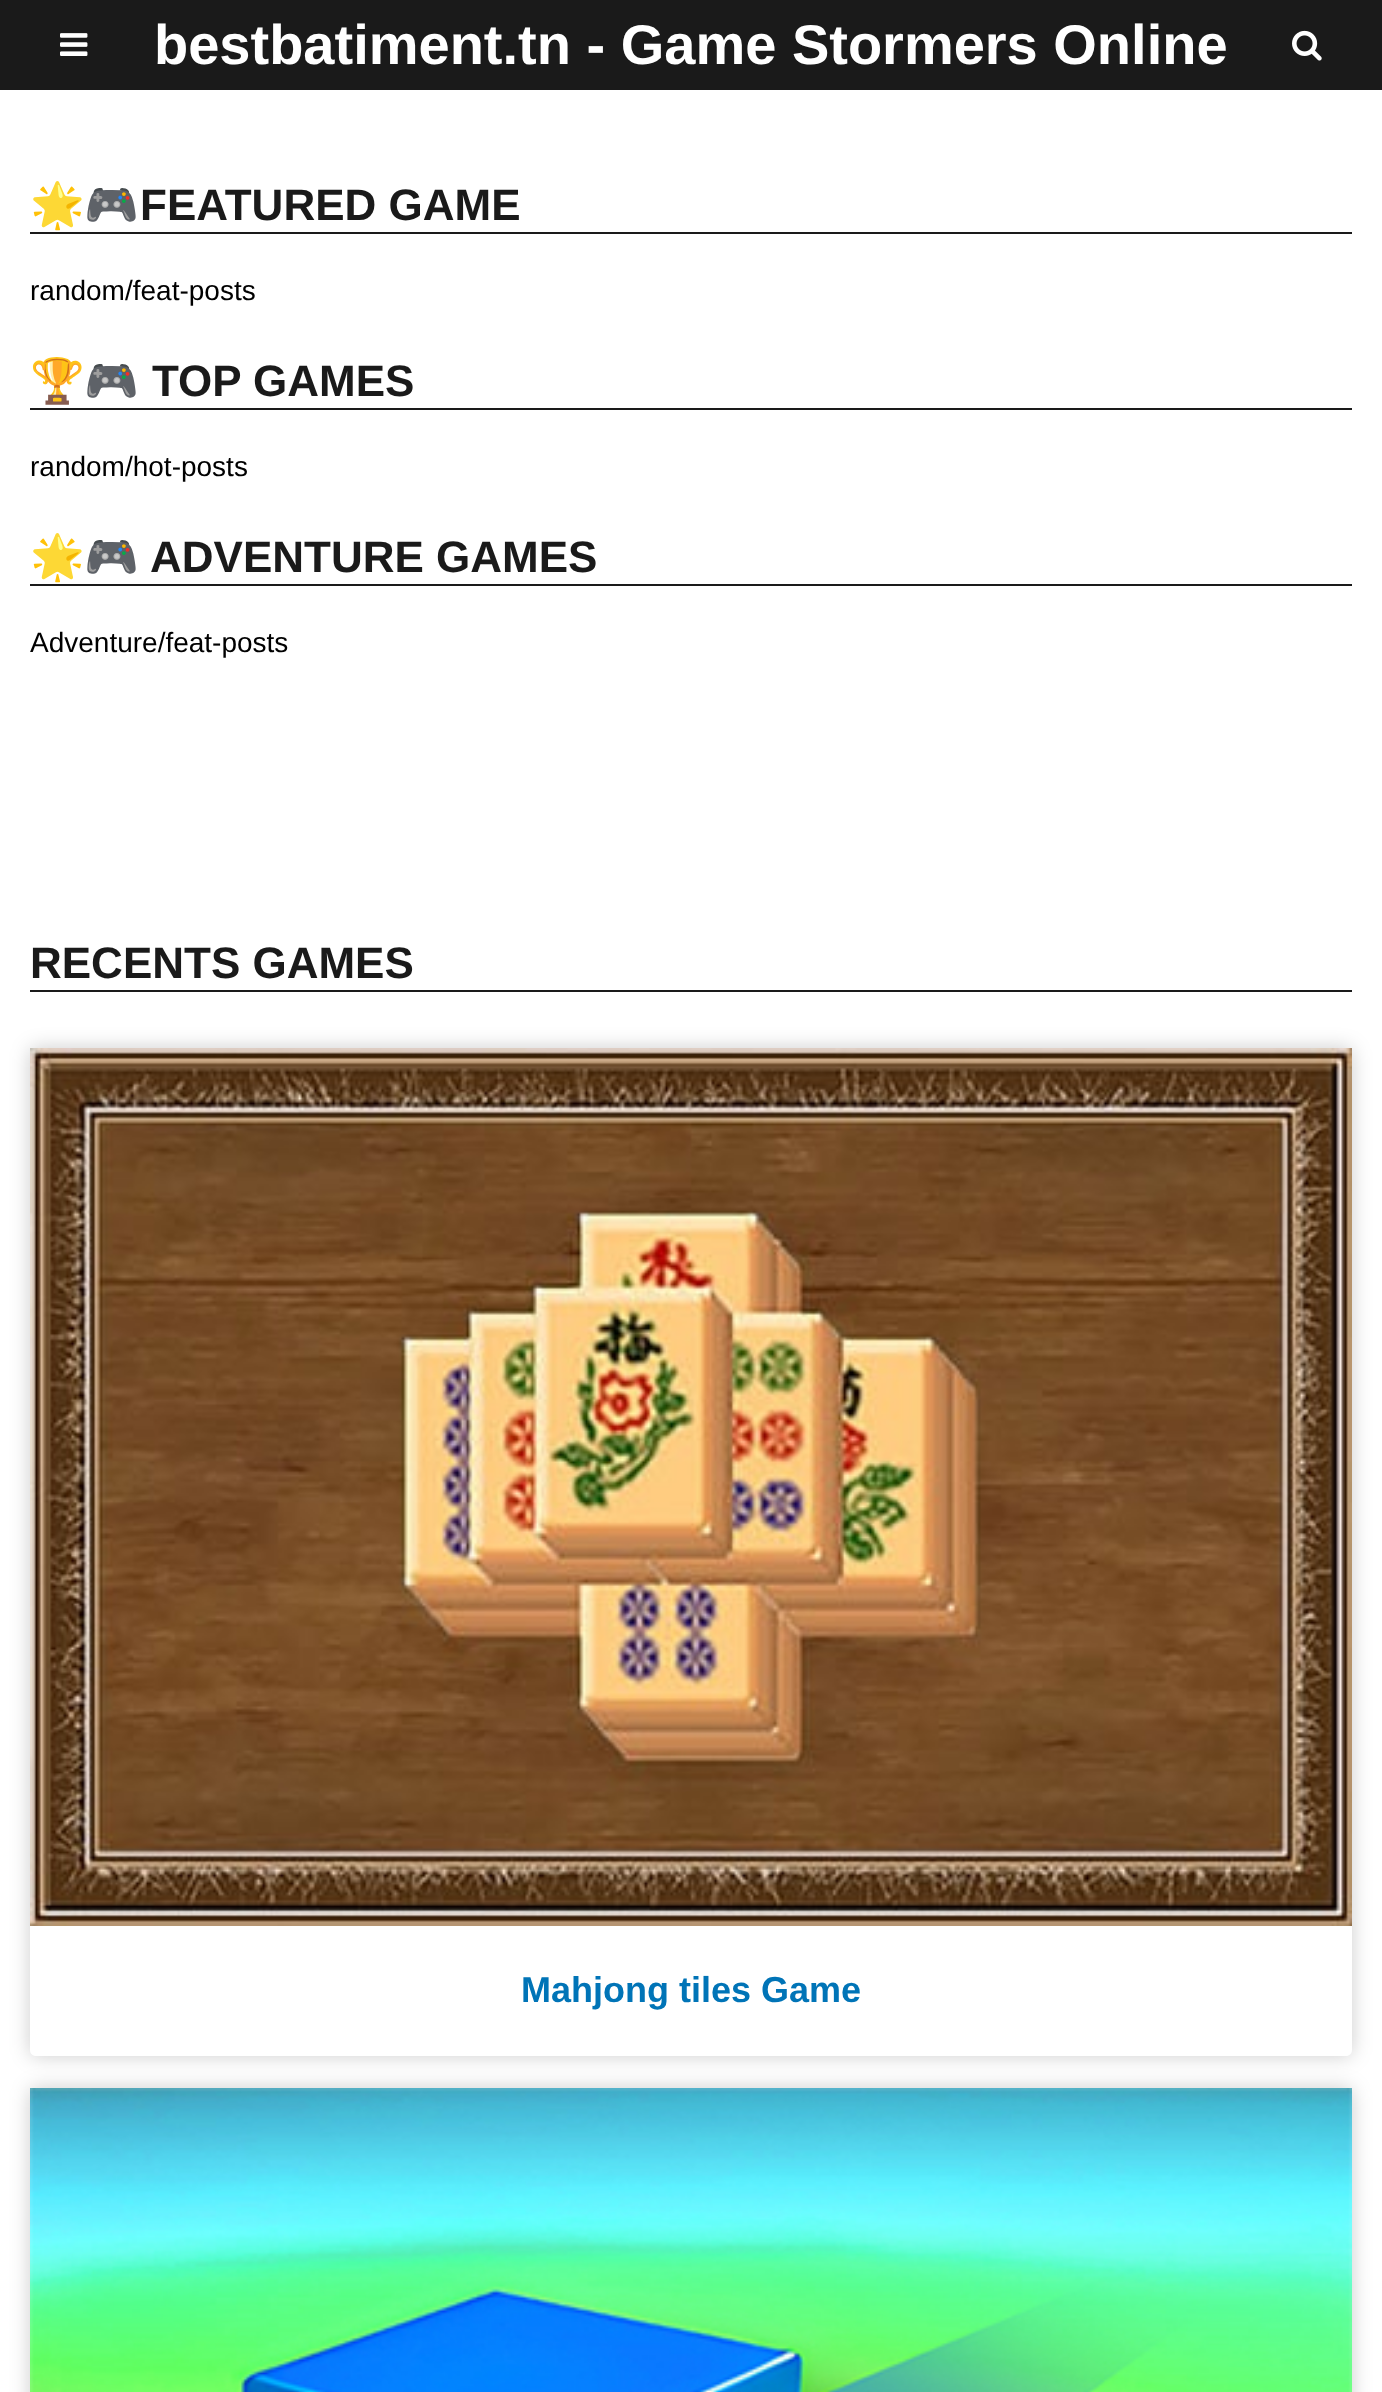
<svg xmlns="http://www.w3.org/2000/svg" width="1382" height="2392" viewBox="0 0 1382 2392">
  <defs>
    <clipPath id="clip1"><path d="M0 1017H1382V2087H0ZM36 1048H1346C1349.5 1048 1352 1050.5 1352 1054V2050C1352 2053.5 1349.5 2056 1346 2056H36C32.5 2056 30 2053.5 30 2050V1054C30 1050.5 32.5 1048 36 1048Z" clip-rule="evenodd"/></clipPath>
    <filter id="blur1" x="-50%" y="-200%" width="200%" height="500%"><feGaussianBlur stdDeviation="10"/></filter>
  </defs>
  <rect width="100%" height="100%" fill="#ffffff"/>
  <rect x="0" y="0" width="1382" height="90" fill="#1a1a1a"/>
  <text x="154" y="64" font-family="Liberation Sans" font-size="56" font-weight="bold" fill="#ffffff">bestbatiment.tn - Game Stormers Online</text>
  <image x="60" y="33" width="28" height="23" href="img1.png"/>
  <image x="1292" y="30" width="30" height="31" href="img2.png"/>
  <rect x="30" y="232" width="1322" height="2" fill="#1a1a1a"/>
  <text x="30" y="220" font-family="Noto Color Emoji" font-size="44" font-weight="bold" fill="#1a1a1a">🌟🎮</text>
  <text x="140" y="220" font-family="Liberation Sans" font-size="44" font-weight="bold" fill="#1a1a1a">FEATURED GAME</text>
  <text x="30" y="300" font-family="Liberation Sans" font-size="28" fill="#000000">random/feat-posts</text>
  <rect x="30" y="408" width="1322" height="2" fill="#1a1a1a"/>
  <text x="30" y="396" font-family="Noto Color Emoji" font-size="44" font-weight="bold" fill="#1a1a1a">🏆🎮</text>
  <text x="152" y="396" font-family="Liberation Sans" font-size="44" font-weight="bold" fill="#1a1a1a">TOP GAMES</text>
  <text x="30" y="476" font-family="Liberation Sans" font-size="28" fill="#000000">random/hot-posts</text>
  <rect x="30" y="584" width="1322" height="2" fill="#1a1a1a"/>
  <text x="30" y="572" font-family="Noto Color Emoji" font-size="44" font-weight="bold" fill="#1a1a1a">🌟🎮</text>
  <text x="150" y="572" font-family="Liberation Sans" font-size="44" font-weight="bold" fill="#1a1a1a">ADVENTURE GAMES</text>
  <text x="30" y="652" font-family="Liberation Sans" font-size="28" fill="#000000">Adventure/feat-posts</text>
  <rect x="30" y="990" width="1322" height="2" fill="#1a1a1a"/>
  <text x="30" y="978" font-family="Liberation Sans" font-size="44" font-weight="bold" fill="#1a1a1a">RECENTS GAMES</text>
  <g clip-path="url(#clip1)">
    <rect x="30" y="1048" width="1322" height="1008" rx="6" fill="#181a1c" fill-opacity="0.2" filter="url(#blur1)"/>
  </g>
  <image x="30" y="1048" width="1322" height="878" href="img3.png"/>
  <text x="521" y="2002" font-family="Liberation Sans" font-size="36" font-weight="bold" fill="#0074b7">Mahjong tiles Game</text>
  <rect x="30" y="2088" width="1322" height="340" rx="6" fill="#181a1c" fill-opacity="0.2" filter="url(#blur1)"/>
  <image x="30" y="2088" width="1322" height="304" href="img4.png"/>
</svg>
